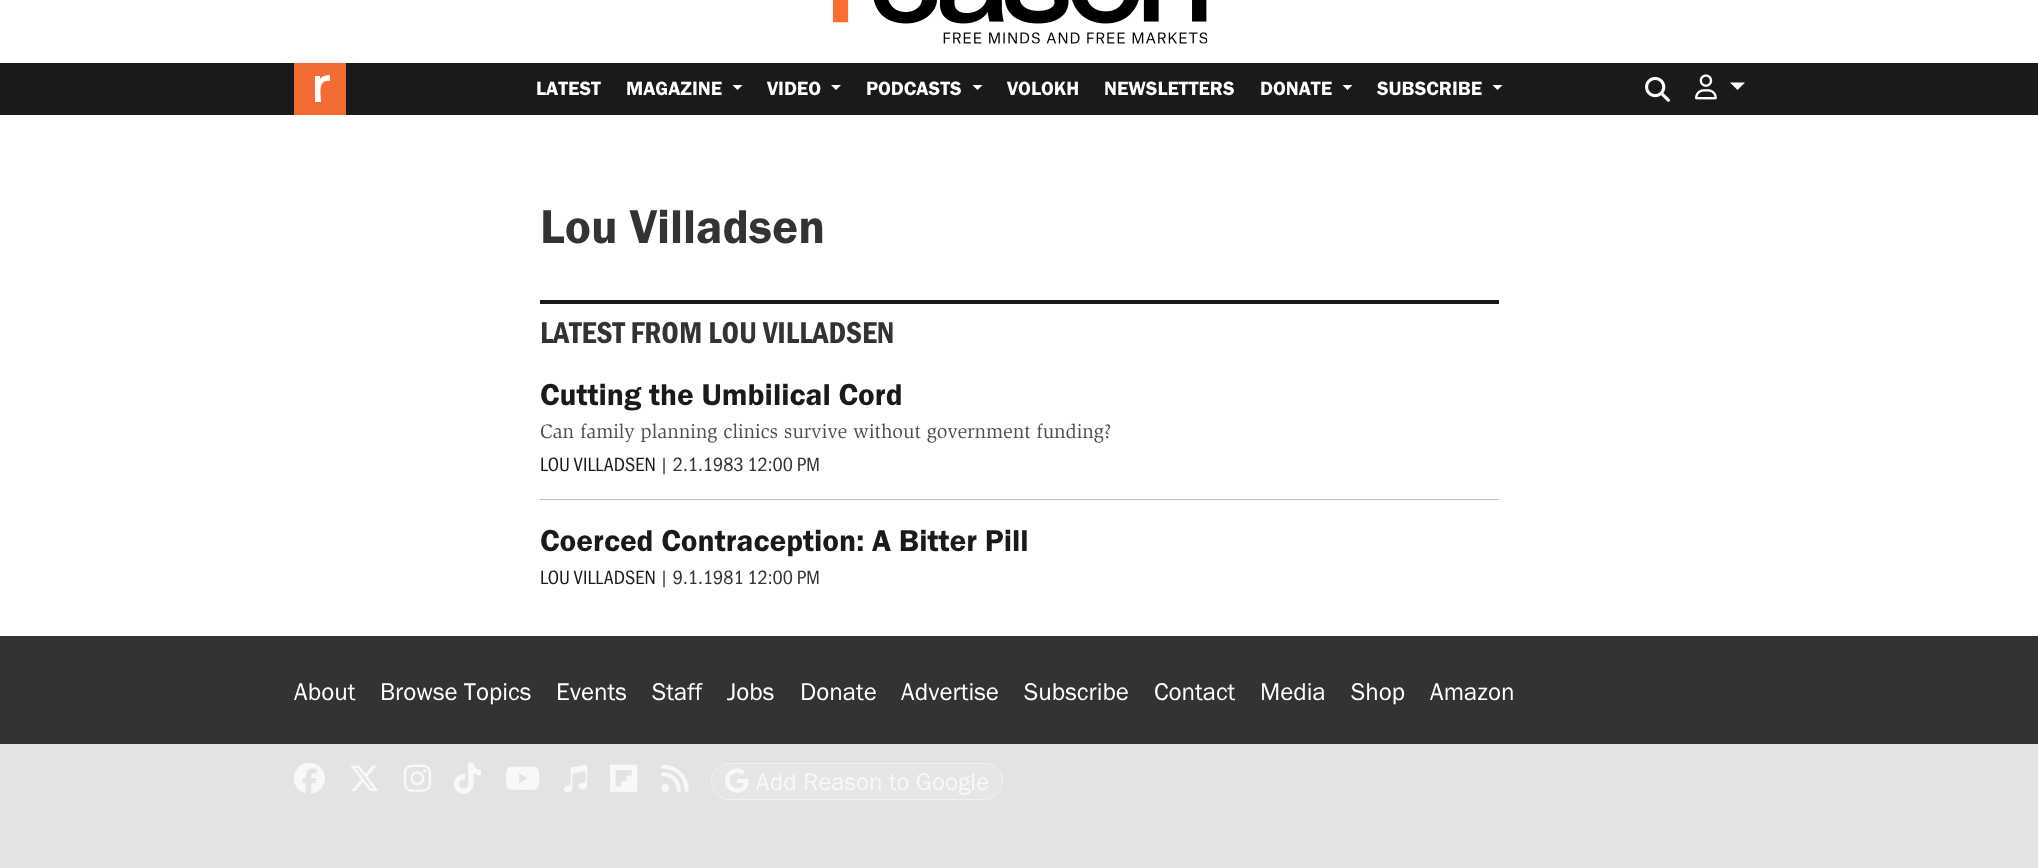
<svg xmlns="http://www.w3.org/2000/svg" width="2038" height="868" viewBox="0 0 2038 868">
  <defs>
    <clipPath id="clip1"><rect x="294" y="63" width="52" height="52"/></clipPath>
  </defs>
  <rect width="100%" height="100%" fill="#ffffff"/>
  <image x="833" y="0" width="375" height="44" href="img1.png"/>
  <rect x="0" y="63" width="2038" height="52" fill="#1a1a1a"/>
  <rect x="315" y="75" width="15" height="27" fill="#ffffff"/>
  <g clip-path="url(#clip1)">
    <path d="M294 62V115H347V62ZM330 81C317 79 321 95 321 102H315V76H320V79C322 76 326 75 330 75Z" fill="#f36c34"/>
  </g>
  <text x="536" y="95" font-family="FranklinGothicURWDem" font-size="20" fill="#ffffff">LATEST</text>
  <text x="626" y="95" font-family="FranklinGothicURWDem" font-size="20" fill="#ffffff">MAGAZINE</text>
  <path d="M732.5 85H742.5L737.5 90Z" fill="#ffffff"/>
  <text x="767" y="95" font-family="FranklinGothicURWDem" font-size="20" fill="#ffffff">VIDEO</text>
  <path d="M831 85H841L836 90Z" fill="#ffffff"/>
  <text x="866" y="95" font-family="FranklinGothicURWDem" font-size="20" fill="#ffffff">PODCASTS</text>
  <path d="M972.5 85H982.5L977.5 90Z" fill="#ffffff"/>
  <text x="1007" y="95" font-family="FranklinGothicURWDem" font-size="20" fill="#ffffff">VOLOKH</text>
  <text x="1104" y="95" font-family="FranklinGothicURWDem" font-size="20" fill="#ffffff">NEWSLETTERS</text>
  <text x="1260" y="95" font-family="FranklinGothicURWDem" font-size="20" fill="#ffffff">DONATE</text>
  <path d="M1342.5 85H1352.5L1347.5 90Z" fill="#ffffff"/>
  <text x="1377" y="95" font-family="FranklinGothicURWDem" font-size="20" fill="#ffffff">SUBSCRIBE</text>
  <path d="M1492.5 85H1502.5L1497.5 90Z" fill="#ffffff"/>
  <image x="1645" y="76" width="25" height="26" href="img2.png"/>
  <image x="1695" y="74" width="22" height="26" href="img3.png"/>
  <path d="M1730 82.5H1745L1737.5 90Z" fill="#ffffff"/>
  <text x="540" y="243" font-family="FranklinGothicURWDem" font-size="49" fill="#333333">Lou Villadsen</text>
  <rect x="540" y="300" width="959" height="4" fill="#1a1a1a"/>
  <text x="540" y="343" font-family="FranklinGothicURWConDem" font-size="31.25" fill="#333333">LATEST FROM LOU VILLADSEN</text>
  <rect x="540" y="499" width="959" height="1" fill="#bababa"/>
  <text x="540" y="405" font-family="FranklinGothicURWDem" font-size="31.25" fill="#1a1a1a">Cutting the Umbilical Cord</text>
  <text x="540" y="438" font-family="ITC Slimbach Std" font-size="20" fill="#4d4d4d">Can family planning clinics survive without government funding?</text>
  <text x="540" y="471" font-family="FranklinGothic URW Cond" font-size="20" fill="#1a1a1a">LOU VILLADSEN</text>
  <text x="659" y="471" font-family="FranklinGothic URW Cond" font-size="20" fill="#333333">| 2.1.1983 12:00 PM</text>
  <text x="540" y="551" font-family="FranklinGothicURWDem" font-size="31.25" fill="#1a1a1a">Coerced Contraception: A Bitter Pill</text>
  <text x="540" y="584" font-family="FranklinGothic URW Cond" font-size="20" fill="#1a1a1a">LOU VILLADSEN</text>
  <text x="659" y="584" font-family="FranklinGothic URW Cond" font-size="20" fill="#333333">| 9.1.1981 12:00 PM</text>
  <rect x="0" y="636" width="2038" height="108" fill="#333333"/>
  <rect x="0" y="744" width="2038" height="124" fill="#e3e3e3"/>
  <text x="294" y="700" font-family="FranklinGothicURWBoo" font-size="25" fill="#ffffff">About</text>
  <text x="380" y="700" font-family="FranklinGothicURWBoo" font-size="25" fill="#ffffff">Browse Topics</text>
  <text x="556" y="700" font-family="FranklinGothicURWBoo" font-size="25" fill="#ffffff">Events</text>
  <text x="652" y="700" font-family="FranklinGothicURWBoo" font-size="25" fill="#ffffff">Staff</text>
  <text x="727" y="700" font-family="FranklinGothicURWBoo" font-size="25" fill="#ffffff">Jobs</text>
  <text x="800" y="700" font-family="FranklinGothicURWBoo" font-size="25" fill="#ffffff">Donate</text>
  <text x="901" y="700" font-family="FranklinGothicURWBoo" font-size="25" fill="#ffffff">Advertise</text>
  <text x="1024" y="700" font-family="FranklinGothicURWBoo" font-size="25" fill="#ffffff">Subscribe</text>
  <text x="1154" y="700" font-family="FranklinGothicURWBoo" font-size="25" fill="#ffffff">Contact</text>
  <text x="1260" y="700" font-family="FranklinGothicURWBoo" font-size="25" fill="#ffffff">Media</text>
  <text x="1351" y="700" font-family="FranklinGothicURWBoo" font-size="25" fill="#ffffff">Shop</text>
  <text x="1430" y="700" font-family="FranklinGothicURWBoo" font-size="25" fill="#ffffff">Amazon</text>
  <image x="293" y="762" width="32" height="32" href="img4.png"/>
  <image x="350" y="765" width="29" height="26" href="img5.png"/>
  <image x="403" y="764" width="29" height="28" href="img6.png"/>
  <image x="453" y="762" width="29" height="32" href="img7.png"/>
  <image x="505" y="766" width="35" height="24" href="img8.png"/>
  <image x="563" y="764" width="25" height="29" href="img9.png"/>
  <image x="610" y="764" width="28" height="28" href="img10.png"/>
  <image x="661" y="764" width="28" height="28" href="img11.png"/>
  <rect x="711.5" y="763.5" width="291" height="36" rx="18" fill="#e6e6e6" stroke="#f1f1f1"/>
  <image x="725" y="768" width="24" height="25" href="img12.png"/>
  <text x="756" y="790" font-family="FranklinGothicURWBoo" font-size="25" fill="#f8f8f8">Add Reason to Google</text>
</svg>
